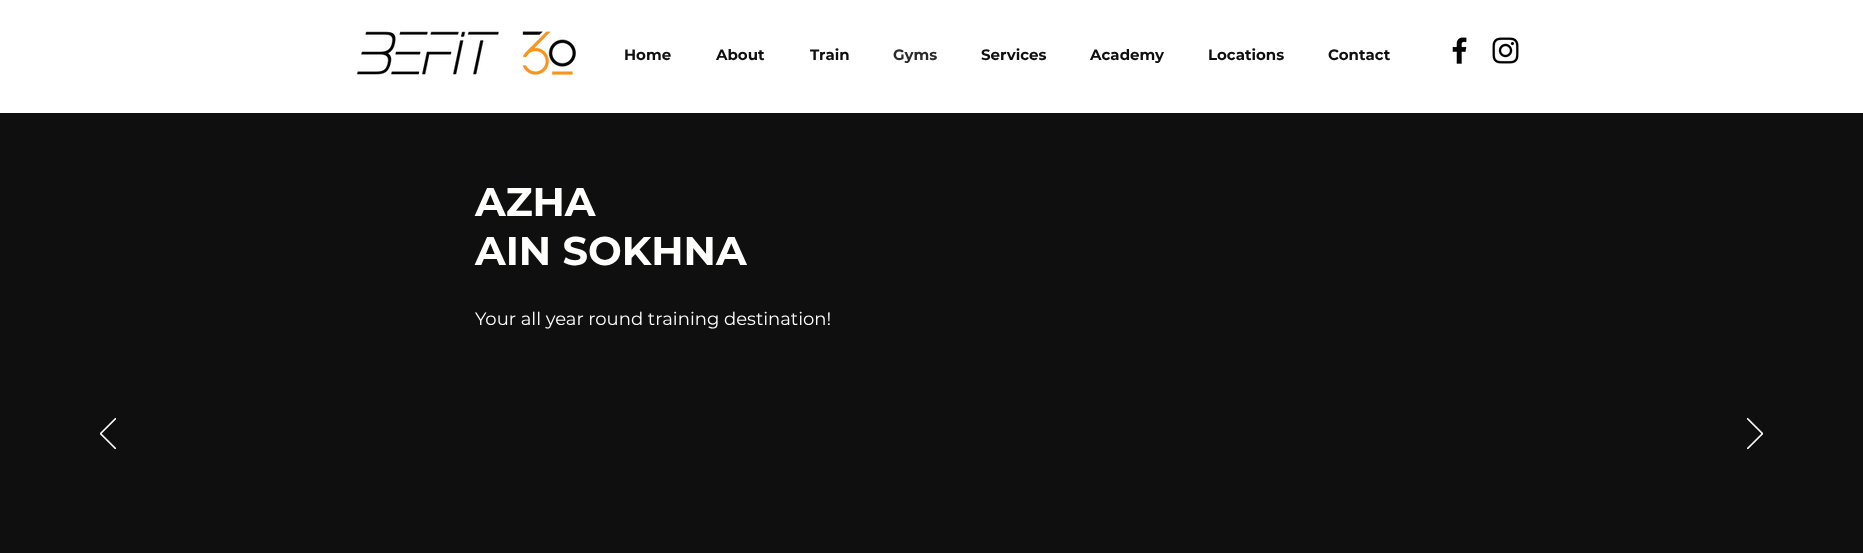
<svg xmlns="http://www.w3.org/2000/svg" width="1863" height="553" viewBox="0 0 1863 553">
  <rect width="100%" height="100%" fill="#ffffff"/>
  <image x="357" y="31" width="219" height="44" href="img1.png"/>
  <text x="624" y="60" font-family="Montserrat" font-size="15" font-weight="bold" fill="#0f0f0f">Home</text>
  <text x="716" y="60" font-family="Montserrat" font-size="15" font-weight="bold" fill="#0f0f0f">About</text>
  <text x="810" y="60" font-family="Montserrat" font-size="15" font-weight="bold" fill="#0f0f0f">Train</text>
  <text x="893" y="60" font-family="Montserrat" font-size="15" font-weight="bold" fill="#2a2a2a">Gyms</text>
  <text x="981" y="60" font-family="Montserrat" font-size="15" font-weight="bold" fill="#0f0f0f">Services</text>
  <text x="1090" y="60" font-family="Montserrat" font-size="15" font-weight="bold" fill="#0f0f0f">Academy</text>
  <text x="1208" y="60" font-family="Montserrat" font-size="15" font-weight="bold" fill="#0f0f0f">Locations</text>
  <text x="1328" y="60" font-family="Montserrat" font-size="15" font-weight="bold" fill="#0f0f0f">Contact</text>
  <image x="1452" y="37" width="15" height="27" href="img2.png"/>
  <image x="1492" y="37" width="27" height="27" href="img3.png"/>
  <rect x="0" y="113" width="1863" height="440" fill="#0f0f0f"/>
  <text x="475" y="216" font-family="Montserrat" font-size="40" font-weight="bold" fill="#fffffe">AZHA</text>
  <text x="475" y="265" font-family="Montserrat" font-size="40" font-weight="bold" fill="#fffffe">AIN SOKHNA</text>
  <text x="475" y="325" font-family="Montserrat" font-size="18" fill="#fffffe">Your all year round training destination!</text>
  <image x="100" y="418" width="16" height="31" href="img4.png"/>
  <image x="1747" y="418" width="16" height="31" href="img5.png"/>
</svg>
